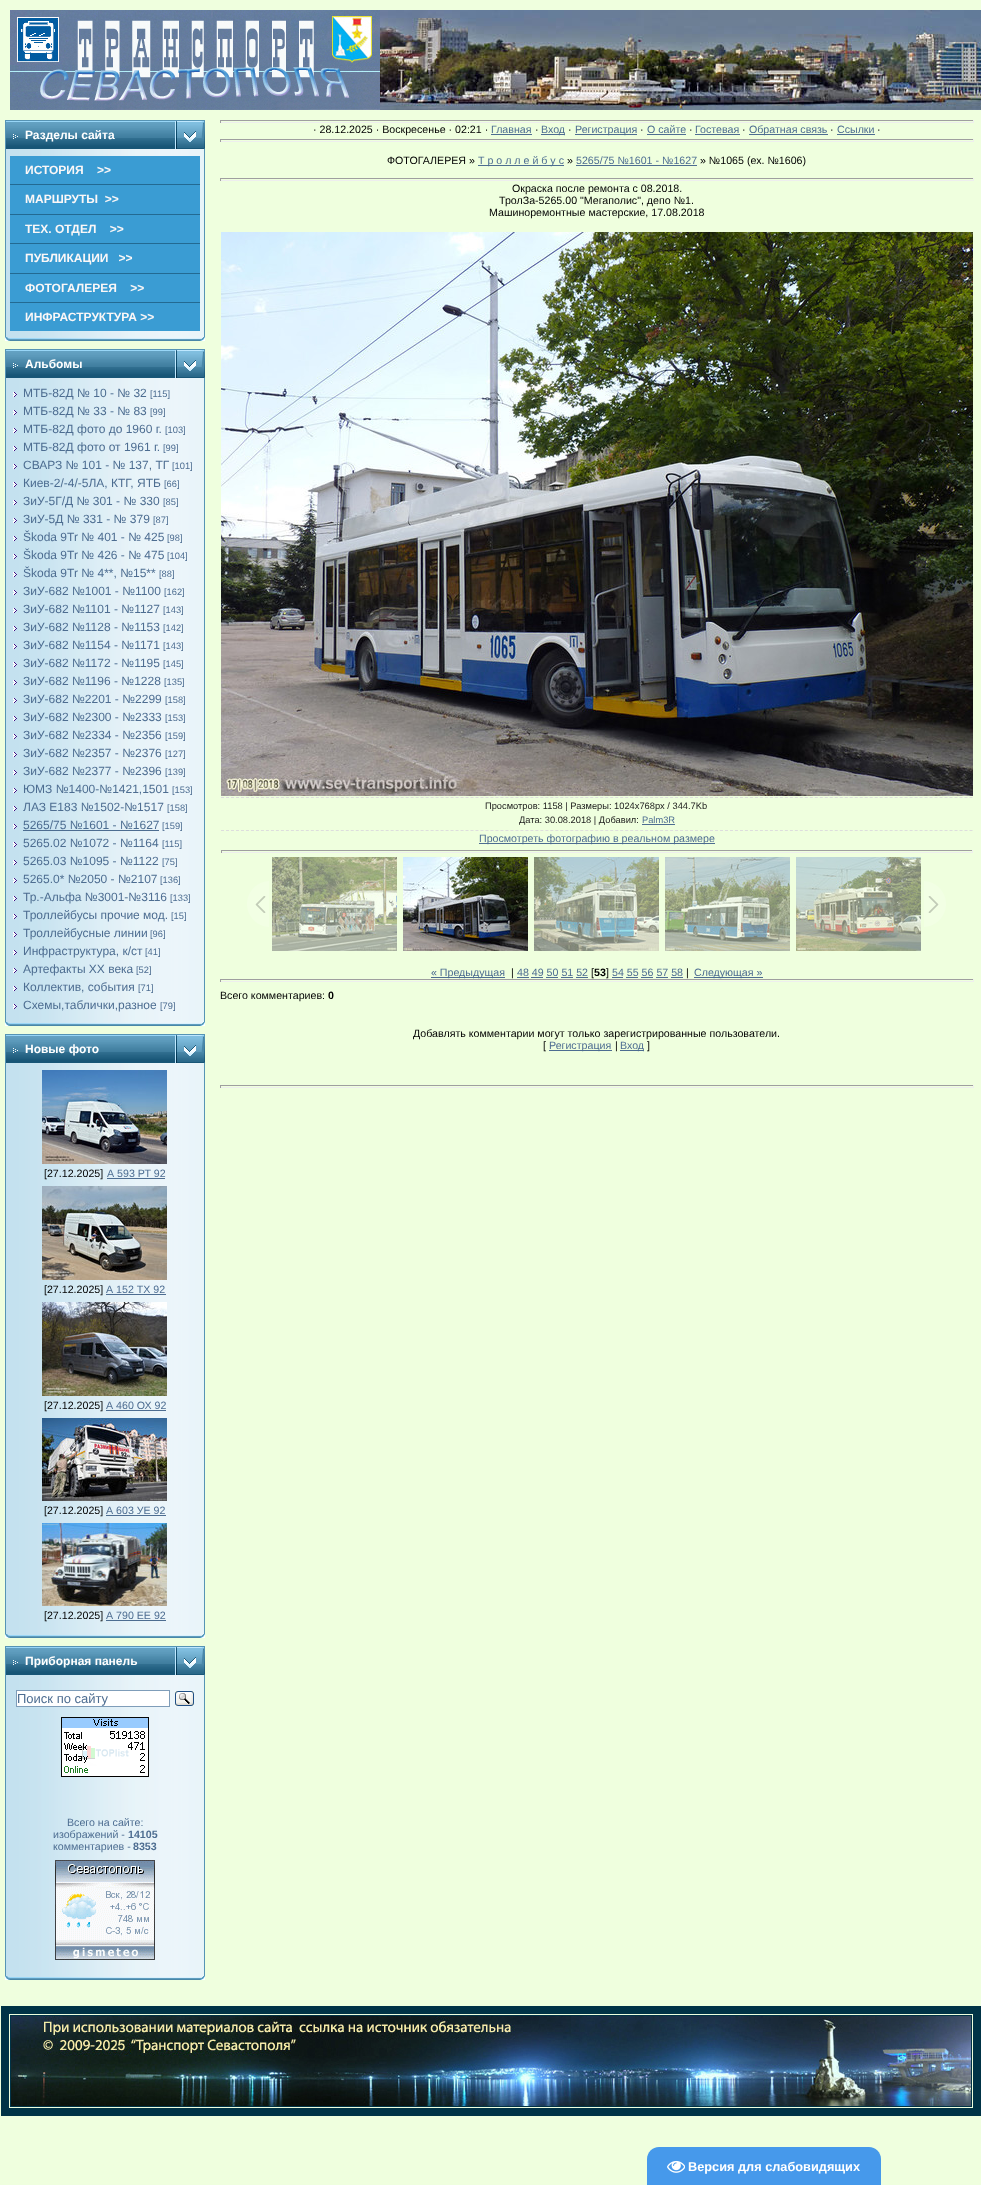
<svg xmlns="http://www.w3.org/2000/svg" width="981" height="2185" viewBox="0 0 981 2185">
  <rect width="100%" height="100%" fill="#efffde"/>
  <image x="10" y="10" width="370" height="100" href="img1.png"/>
  <image x="380" y="10" width="601" height="100" href="img2.png"/>
  <image x="6" y="120" width="169" height="29" href="img3.png"/>
  <rect x="5" y="120" width="1" height="29" fill="#5694b5"/>
  <image x="13" y="134" width="5" height="5" href="img4.png"/>
  <text x="25" y="139" font-family="Liberation Sans" font-size="12" font-weight="bold" fill="#ffffff">Разделы сайта</text>
  <image x="175" y="120" width="30" height="1" href="img5.png"/>
  <image x="175" y="121" width="30" height="28" href="img6.png"/>
  <image x="5" y="149" width="200" height="187" href="img7.png"/>
  <rect x="10" y="156" width="190" height="28" fill="#3a9cd3"/>
  <text x="25" y="174" font-family="Liberation Sans" font-size="12" font-weight="bold" fill="#fbf7f7" xml:space="preserve">ИСТОРИЯ    &gt;&gt;</text>
  <rect x="10" y="185" width="190" height="29" fill="#3a9cd3"/>
  <rect x="10" y="184" width="190" height="1" fill="#236a92"/>
  <text x="25" y="203" font-family="Liberation Sans" font-size="12" font-weight="bold" fill="#fbf7f7" xml:space="preserve">МАРШРУТЫ  &gt;&gt;</text>
  <rect x="10" y="215" width="190" height="28" fill="#3a9cd3"/>
  <rect x="10" y="214" width="190" height="1" fill="#236a92"/>
  <text x="25" y="233" font-family="Liberation Sans" font-size="12" font-weight="bold" fill="#fbf7f7" xml:space="preserve">ТЕХ. ОТДЕЛ    &gt;&gt;</text>
  <rect x="10" y="244" width="190" height="29" fill="#3a9cd3"/>
  <rect x="10" y="243" width="190" height="1" fill="#236a92"/>
  <text x="25" y="262" font-family="Liberation Sans" font-size="12" font-weight="bold" fill="#fbf7f7" xml:space="preserve">ПУБЛИКАЦИИ   &gt;&gt;</text>
  <rect x="10" y="274" width="190" height="28" fill="#3a9cd3"/>
  <rect x="10" y="273" width="190" height="1" fill="#236a92"/>
  <text x="25" y="292" font-family="Liberation Sans" font-size="12" font-weight="bold" fill="#fbf7f7" xml:space="preserve">ФОТОГАЛЕРЕЯ    &gt;&gt;</text>
  <rect x="10" y="303" width="190" height="28" fill="#3a9cd3"/>
  <rect x="10" y="302" width="190" height="1" fill="#236a92"/>
  <text x="25" y="321" font-family="Liberation Sans" font-size="12" font-weight="bold" fill="#fbf7f7">ИНФРАСТРУКТУРА &gt;&gt;</text>
  <image x="5" y="336" width="200" height="5" href="img8.png"/>
  <image x="6" y="349" width="169" height="29" href="img3.png"/>
  <rect x="5" y="349" width="1" height="29" fill="#5694b5"/>
  <image x="13" y="363" width="5" height="5" href="img4.png"/>
  <text x="25" y="368" font-family="Liberation Sans" font-size="12" font-weight="bold" fill="#ffffff">Альбомы</text>
  <image x="175" y="349" width="30" height="1" href="img5.png"/>
  <image x="175" y="350" width="30" height="28" href="img6.png"/>
  <image x="5" y="378" width="200" height="643" href="img9.png"/>
  <image x="13" y="392" width="4" height="5" href="img10.png"/>
  <text x="23" y="397" font-family="Liberation Sans" font-size="12" fill="#4d6d91">МТБ-82Д № 10 - № 32</text>
  <text x="150" y="397" font-family="Liberation Sans" font-size="9.3" fill="#4d6d91">[115]</text>
  <image x="13" y="410" width="4" height="5" href="img10.png"/>
  <text x="23" y="415" font-family="Liberation Sans" font-size="12" fill="#4d6d91">МТБ-82Д № 33 - № 83</text>
  <text x="150" y="415" font-family="Liberation Sans" font-size="9.3" fill="#4d6d91">[99]</text>
  <image x="13" y="428" width="4" height="5" href="img10.png"/>
  <text x="23" y="433" font-family="Liberation Sans" font-size="12" fill="#4d6d91">МТБ-82Д фото до 1960 г.</text>
  <text x="165" y="433" font-family="Liberation Sans" font-size="9.3" fill="#4d6d91">[103]</text>
  <image x="13" y="446" width="4" height="5" href="img10.png"/>
  <text x="23" y="451" font-family="Liberation Sans" font-size="12" fill="#4d6d91">МТБ-82Д фото от 1961 г.</text>
  <text x="163" y="451" font-family="Liberation Sans" font-size="9.3" fill="#4d6d91">[99]</text>
  <image x="13" y="464" width="4" height="5" href="img10.png"/>
  <text x="23" y="469" font-family="Liberation Sans" font-size="12" fill="#4d6d91">СВАРЗ № 101 - № 137, ТГ</text>
  <text x="172" y="469" font-family="Liberation Sans" font-size="9.3" fill="#4d6d91">[101]</text>
  <image x="13" y="482" width="4" height="5" href="img10.png"/>
  <text x="23" y="487" font-family="Liberation Sans" font-size="12" fill="#4d6d91">Киев-2/-4/-5ЛА, КТГ, ЯТБ</text>
  <text x="164" y="487" font-family="Liberation Sans" font-size="9.3" fill="#4d6d91">[66]</text>
  <image x="13" y="500" width="4" height="5" href="img10.png"/>
  <text x="23" y="505" font-family="Liberation Sans" font-size="12" fill="#4d6d91">ЗиУ-5Г/Д № 301 - № 330</text>
  <text x="163" y="505" font-family="Liberation Sans" font-size="9.3" fill="#4d6d91">[85]</text>
  <image x="13" y="518" width="4" height="5" href="img10.png"/>
  <text x="23" y="523" font-family="Liberation Sans" font-size="12" fill="#4d6d91">ЗиУ-5Д № 331 - № 379</text>
  <text x="153" y="523" font-family="Liberation Sans" font-size="9.3" fill="#4d6d91">[87]</text>
  <image x="13" y="536" width="4" height="5" href="img10.png"/>
  <text x="23" y="541" font-family="Liberation Sans" font-size="12" fill="#4d6d91">Škoda 9Tr № 401 - № 425</text>
  <text x="167" y="541" font-family="Liberation Sans" font-size="9.3" fill="#4d6d91">[98]</text>
  <image x="13" y="554" width="4" height="5" href="img10.png"/>
  <text x="23" y="559" font-family="Liberation Sans" font-size="12" fill="#4d6d91">Škoda 9Tr № 426 - № 475</text>
  <text x="167" y="559" font-family="Liberation Sans" font-size="9.3" fill="#4d6d91">[104]</text>
  <image x="13" y="572" width="4" height="5" href="img10.png"/>
  <text x="23" y="577" font-family="Liberation Sans" font-size="12" fill="#4d6d91">Škoda 9Tr № 4**, №15**</text>
  <text x="159" y="577" font-family="Liberation Sans" font-size="9.3" fill="#4d6d91">[88]</text>
  <image x="13" y="590" width="4" height="5" href="img10.png"/>
  <text x="23" y="595" font-family="Liberation Sans" font-size="12" fill="#4d6d91">ЗиУ-682 №1001 - №1100</text>
  <text x="164" y="595" font-family="Liberation Sans" font-size="9.3" fill="#4d6d91">[162]</text>
  <image x="13" y="608" width="4" height="5" href="img10.png"/>
  <text x="23" y="613" font-family="Liberation Sans" font-size="12" fill="#4d6d91">ЗиУ-682 №1101 - №1127</text>
  <text x="163" y="613" font-family="Liberation Sans" font-size="9.3" fill="#4d6d91">[143]</text>
  <image x="13" y="626" width="4" height="5" href="img10.png"/>
  <text x="23" y="631" font-family="Liberation Sans" font-size="12" fill="#4d6d91">ЗиУ-682 №1128 - №1153</text>
  <text x="163" y="631" font-family="Liberation Sans" font-size="9.3" fill="#4d6d91">[142]</text>
  <image x="13" y="644" width="4" height="5" href="img10.png"/>
  <text x="23" y="649" font-family="Liberation Sans" font-size="12" fill="#4d6d91">ЗиУ-682 №1154 - №1171</text>
  <text x="163" y="649" font-family="Liberation Sans" font-size="9.3" fill="#4d6d91">[143]</text>
  <image x="13" y="662" width="4" height="5" href="img10.png"/>
  <text x="23" y="667" font-family="Liberation Sans" font-size="12" fill="#4d6d91">ЗиУ-682 №1172 - №1195</text>
  <text x="163" y="667" font-family="Liberation Sans" font-size="9.3" fill="#4d6d91">[145]</text>
  <image x="13" y="680" width="4" height="5" href="img10.png"/>
  <text x="23" y="685" font-family="Liberation Sans" font-size="12" fill="#4d6d91">ЗиУ-682 №1196 - №1228</text>
  <text x="164" y="685" font-family="Liberation Sans" font-size="9.3" fill="#4d6d91">[135]</text>
  <image x="13" y="698" width="4" height="5" href="img10.png"/>
  <text x="23" y="703" font-family="Liberation Sans" font-size="12" fill="#4d6d91">ЗиУ-682 №2201 - №2299</text>
  <text x="165" y="703" font-family="Liberation Sans" font-size="9.3" fill="#4d6d91">[158]</text>
  <image x="13" y="716" width="4" height="5" href="img10.png"/>
  <text x="23" y="721" font-family="Liberation Sans" font-size="12" fill="#4d6d91">ЗиУ-682 №2300 - №2333</text>
  <text x="165" y="721" font-family="Liberation Sans" font-size="9.3" fill="#4d6d91">[153]</text>
  <image x="13" y="734" width="4" height="5" href="img10.png"/>
  <text x="23" y="739" font-family="Liberation Sans" font-size="12" fill="#4d6d91">ЗиУ-682 №2334 - №2356</text>
  <text x="165" y="739" font-family="Liberation Sans" font-size="9.3" fill="#4d6d91">[159]</text>
  <image x="13" y="752" width="4" height="5" href="img10.png"/>
  <text x="23" y="757" font-family="Liberation Sans" font-size="12" fill="#4d6d91">ЗиУ-682 №2357 - №2376</text>
  <text x="165" y="757" font-family="Liberation Sans" font-size="9.3" fill="#4d6d91">[127]</text>
  <image x="13" y="770" width="4" height="5" href="img10.png"/>
  <text x="23" y="775" font-family="Liberation Sans" font-size="12" fill="#4d6d91">ЗиУ-682 №2377 - №2396</text>
  <text x="165" y="775" font-family="Liberation Sans" font-size="9.3" fill="#4d6d91">[139]</text>
  <image x="13" y="788" width="4" height="5" href="img10.png"/>
  <text x="23" y="793" font-family="Liberation Sans" font-size="12" fill="#4d6d91">ЮМЗ №1400-№1421,1501</text>
  <text x="172" y="793" font-family="Liberation Sans" font-size="9.3" fill="#4d6d91">[153]</text>
  <image x="13" y="806" width="4" height="5" href="img10.png"/>
  <text x="23" y="811" font-family="Liberation Sans" font-size="12" fill="#4d6d91">ЛАЗ Е183 №1502-№1517</text>
  <text x="167" y="811" font-family="Liberation Sans" font-size="9.3" fill="#4d6d91">[158]</text>
  <image x="13" y="824" width="4" height="5" href="img10.png"/>
  <text x="23" y="829" font-family="Liberation Sans" font-size="12" fill="#4d6d91">5265/75 №1601 - №1627</text>
  <rect x="23" y="830" width="136" height="1" fill="#4d6d91"/>
  <text x="162" y="829" font-family="Liberation Sans" font-size="9.3" fill="#4d6d91">[159]</text>
  <image x="13" y="842" width="4" height="5" href="img10.png"/>
  <text x="23" y="847" font-family="Liberation Sans" font-size="12" fill="#4d6d91">5265.02 №1072 - №1164</text>
  <text x="162" y="847" font-family="Liberation Sans" font-size="9.3" fill="#4d6d91">[115]</text>
  <image x="13" y="860" width="4" height="5" href="img10.png"/>
  <text x="23" y="865" font-family="Liberation Sans" font-size="12" fill="#4d6d91">5265.03 №1095 - №1122</text>
  <text x="162" y="865" font-family="Liberation Sans" font-size="9.3" fill="#4d6d91">[75]</text>
  <image x="13" y="878" width="4" height="5" href="img10.png"/>
  <text x="23" y="883" font-family="Liberation Sans" font-size="12" fill="#4d6d91">5265.0* №2050 - №2107</text>
  <text x="160" y="883" font-family="Liberation Sans" font-size="9.3" fill="#4d6d91">[136]</text>
  <image x="13" y="896" width="4" height="5" href="img10.png"/>
  <text x="23" y="901" font-family="Liberation Sans" font-size="12" fill="#4d6d91">Тр.-Альфа №3001-№3116</text>
  <text x="170" y="901" font-family="Liberation Sans" font-size="9.3" fill="#4d6d91">[133]</text>
  <image x="13" y="914" width="4" height="5" href="img10.png"/>
  <text x="23" y="919" font-family="Liberation Sans" font-size="12" fill="#4d6d91">Троллейбусы прочие мод.</text>
  <text x="171" y="919" font-family="Liberation Sans" font-size="9.3" fill="#4d6d91">[15]</text>
  <image x="13" y="932" width="4" height="5" href="img10.png"/>
  <text x="23" y="937" font-family="Liberation Sans" font-size="12" fill="#4d6d91">Троллейбусные линии</text>
  <text x="150" y="937" font-family="Liberation Sans" font-size="9.3" fill="#4d6d91">[96]</text>
  <image x="13" y="950" width="4" height="5" href="img10.png"/>
  <text x="23" y="955" font-family="Liberation Sans" font-size="12" fill="#4d6d91">Инфраструктура, к/ст</text>
  <text x="145" y="955" font-family="Liberation Sans" font-size="9.3" fill="#4d6d91">[41]</text>
  <image x="13" y="968" width="4" height="5" href="img10.png"/>
  <text x="23" y="973" font-family="Liberation Sans" font-size="12" fill="#4d6d91">Артефакты ХХ века</text>
  <text x="136" y="973" font-family="Liberation Sans" font-size="9.3" fill="#4d6d91">[52]</text>
  <image x="13" y="986" width="4" height="5" href="img10.png"/>
  <text x="23" y="991" font-family="Liberation Sans" font-size="12" fill="#4d6d91">Коллектив, события</text>
  <text x="138" y="991" font-family="Liberation Sans" font-size="9.3" fill="#4d6d91">[71]</text>
  <image x="13" y="1004" width="4" height="5" href="img10.png"/>
  <text x="23" y="1009" font-family="Liberation Sans" font-size="12" fill="#4d6d91">Схемы,таблички,разное</text>
  <text x="160" y="1009" font-family="Liberation Sans" font-size="9.3" fill="#4d6d91">[79]</text>
  <image x="5" y="1021" width="200" height="5" href="img8.png"/>
  <image x="6" y="1034" width="169" height="29" href="img3.png"/>
  <rect x="5" y="1034" width="1" height="29" fill="#5694b5"/>
  <image x="13" y="1048" width="5" height="5" href="img4.png"/>
  <text x="25" y="1053" font-family="Liberation Sans" font-size="12" font-weight="bold" fill="#ffffff">Новые фото</text>
  <image x="175" y="1034" width="30" height="1" href="img5.png"/>
  <image x="175" y="1035" width="30" height="28" href="img6.png"/>
  <image x="5" y="1063" width="200" height="570" href="img11.png"/>
  <image x="42" y="1070" width="125" height="94" href="img12.png"/>
  <text x="44" y="1177" font-family="Liberation Sans" font-size="10.65" fill="#000000">[27.12.2025]</text>
  <text x="107" y="1177" font-family="Liberation Sans" font-size="10.65" fill="#4d6d91">А 593 РТ 92</text>
  <rect x="107" y="1178" width="58" height="1" fill="#4d6d91"/>
  <image x="42" y="1186" width="125" height="94" href="img13.png"/>
  <text x="44" y="1293" font-family="Liberation Sans" font-size="10.65" fill="#000000">[27.12.2025]</text>
  <text x="106" y="1293" font-family="Liberation Sans" font-size="10.65" fill="#4d6d91">А 152 ТХ 92</text>
  <rect x="106" y="1294" width="60" height="1" fill="#4d6d91"/>
  <image x="42" y="1302" width="125" height="94" href="img14.png"/>
  <text x="44" y="1409" font-family="Liberation Sans" font-size="10.65" fill="#000000">[27.12.2025]</text>
  <text x="106" y="1409" font-family="Liberation Sans" font-size="10.65" fill="#4d6d91">А 460 ОХ 92</text>
  <rect x="106" y="1410" width="60" height="1" fill="#4d6d91"/>
  <image x="42" y="1418" width="125" height="83" href="img15.png"/>
  <text x="44" y="1514" font-family="Liberation Sans" font-size="10.65" fill="#000000">[27.12.2025]</text>
  <text x="106" y="1514" font-family="Liberation Sans" font-size="10.65" fill="#4d6d91">А 603 УЕ 92</text>
  <rect x="106" y="1515" width="60" height="1" fill="#4d6d91"/>
  <image x="42" y="1523" width="125" height="83" href="img16.png"/>
  <text x="44" y="1619" font-family="Liberation Sans" font-size="10.65" fill="#000000">[27.12.2025]</text>
  <text x="106" y="1619" font-family="Liberation Sans" font-size="10.65" fill="#4d6d91">А 790 ЕЕ 92</text>
  <rect x="106" y="1620" width="60" height="1" fill="#4d6d91"/>
  <image x="5" y="1633" width="200" height="5" href="img8.png"/>
  <image x="6" y="1646" width="169" height="29" href="img3.png"/>
  <rect x="5" y="1646" width="1" height="29" fill="#5694b5"/>
  <image x="13" y="1660" width="5" height="5" href="img4.png"/>
  <text x="25" y="1665" font-family="Liberation Sans" font-size="12" font-weight="bold" fill="#ffffff">Приборная панель</text>
  <image x="175" y="1646" width="30" height="1" href="img5.png"/>
  <image x="175" y="1647" width="30" height="28" href="img6.png"/>
  <image x="5" y="1675" width="200" height="300" href="img17.png"/>
  <rect x="16.5" y="1690.5" width="153" height="16" fill="#ffffff" stroke="#7f9db9"/>
  <text x="17" y="1703" font-family="Liberation Sans" font-size="13" fill="#4d6d91">Поиск по сайту</text>
  <image x="175" y="1691" width="19" height="15" href="img18.png"/>
  <image x="61" y="1717" width="88" height="60" href="img19.png"/>
  <text x="67" y="1826" font-family="Liberation Sans" font-size="10.65" fill="#4d6d91">Всего на сайте:</text>
  <text x="53" y="1838" font-family="Liberation Sans" font-size="10.65" fill="#4d6d91">изображений -</text>
  <text x="128" y="1838" font-family="Liberation Sans" font-size="10.65" font-weight="bold" fill="#4d6d91">14105</text>
  <text x="53" y="1850" font-family="Liberation Sans" font-size="10.65" fill="#4d6d91">комментариев -</text>
  <text x="133" y="1850" font-family="Liberation Sans" font-size="10.65" font-weight="bold" fill="#4d6d91">8353</text>
  <image x="55" y="1860" width="100" height="100" href="img20.png"/>
  <image x="5" y="1975" width="200" height="5" href="img8.png"/>
  <rect x="220" y="120" width="754" height="1" fill="#9f9f9f"/>
  <rect x="973" y="120" width="1" height="3" fill="#eeeeee"/>
  <rect x="220" y="122" width="754" height="1" fill="#eeeeee"/>
  <rect x="220" y="120" width="1" height="3" fill="#9f9f9f"/>
  <text x="313" y="133" font-family="Liberation Sans" font-size="10.65" fill="#000000">· 28.12.2025 · Воскресенье · 02:21 ·</text>
  <text x="491" y="133" font-family="Liberation Sans" font-size="10.65" fill="#4d6d91">Главная</text>
  <rect x="491" y="134" width="41" height="1" fill="#4d6d91"/>
  <text x="535" y="133" font-family="Liberation Sans" font-size="10.65" fill="#000000">·</text>
  <rect x="541" y="134" width="24" height="1" fill="#4d6d91"/>
  <text x="541" y="133" font-family="Liberation Sans" font-size="10.65" fill="#4d6d91">Вход</text>
  <text x="568" y="133" font-family="Liberation Sans" font-size="10.65" fill="#000000">·</text>
  <rect x="575" y="134" width="62" height="1" fill="#4d6d91"/>
  <text x="575" y="133" font-family="Liberation Sans" font-size="10.65" fill="#4d6d91">Регистрация</text>
  <text x="640" y="133" font-family="Liberation Sans" font-size="10.65" fill="#000000">·</text>
  <text x="647" y="133" font-family="Liberation Sans" font-size="10.65" fill="#4d6d91">О сайте</text>
  <rect x="647" y="134" width="39" height="1" fill="#4d6d91"/>
  <text x="689" y="133" font-family="Liberation Sans" font-size="10.65" fill="#000000">·</text>
  <text x="695" y="133" font-family="Liberation Sans" font-size="10.65" fill="#4d6d91">Гостевая</text>
  <rect x="695" y="134" width="45" height="1" fill="#4d6d91"/>
  <text x="742" y="133" font-family="Liberation Sans" font-size="10.65" fill="#000000">·</text>
  <rect x="749" y="134" width="79" height="1" fill="#4d6d91"/>
  <text x="749" y="133" font-family="Liberation Sans" font-size="10.65" fill="#4d6d91">Обратная связь</text>
  <text x="830" y="133" font-family="Liberation Sans" font-size="10.65" fill="#000000">·</text>
  <text x="837" y="133" font-family="Liberation Sans" font-size="10.65" fill="#4d6d91">Ссылки</text>
  <rect x="837" y="134" width="38" height="1" fill="#4d6d91"/>
  <text x="877" y="133" font-family="Liberation Sans" font-size="10.65" fill="#000000">·</text>
  <rect x="220" y="139" width="754" height="1" fill="#9f9f9f"/>
  <rect x="973" y="139" width="1" height="3" fill="#eeeeee"/>
  <rect x="220" y="141" width="754" height="1" fill="#eeeeee"/>
  <rect x="220" y="139" width="1" height="3" fill="#9f9f9f"/>
  <text x="387" y="164" font-family="Liberation Sans" font-size="10.65" fill="#000000">ФОТОГАЛЕРЕЯ »</text>
  <rect x="478" y="165" width="86" height="1" fill="#4d6d91"/>
  <text x="478" y="164" font-family="Liberation Sans" font-size="10.65" fill="#4d6d91">Т р о л л е й б у с</text>
  <text x="567" y="164" font-family="Liberation Sans" font-size="10.65" fill="#000000">»</text>
  <text x="576" y="164" font-family="Liberation Sans" font-size="10.65" fill="#4d6d91">5265/75 №1601 - №1627</text>
  <rect x="576" y="165" width="121" height="1" fill="#4d6d91"/>
  <text x="700" y="164" font-family="Liberation Sans" font-size="10.65" fill="#000000">» №1065 (ех. №1606)</text>
  <rect x="220" y="178" width="754" height="1" fill="#9f9f9f"/>
  <rect x="973" y="178" width="1" height="3" fill="#eeeeee"/>
  <rect x="220" y="180" width="754" height="1" fill="#eeeeee"/>
  <rect x="220" y="178" width="1" height="3" fill="#9f9f9f"/>
  <text x="512" y="192" font-family="Liberation Sans" font-size="10.65" fill="#000000">Окраска после ремонта с 08.2018.</text>
  <text x="499" y="204" font-family="Liberation Sans" font-size="10.65" fill="#000000">ТролЗа-5265.00 "Мегаполис", депо №1.</text>
  <text x="489" y="216" font-family="Liberation Sans" font-size="10.65" fill="#000000">Машиноремонтные мастерские, 17.08.2018</text>
  <image x="221" y="232" width="752" height="564" href="img21.png"/>
  <path d="M221 797.5H973" fill="none" stroke="#dddddd" stroke-dasharray="3 1.99"/>
  <path d="M221 830.5H973" fill="none" stroke="#dddddd" stroke-dasharray="3 1.99"/>
  <text x="485" y="809" font-family="Liberation Sans" font-size="9.3" fill="#1a1a1a">Просмотров: 1158 | Размеры: 1024x768px / 344.7Kb</text>
  <text x="519" y="823" font-family="Liberation Sans" font-size="9.3" fill="#1a1a1a">Дата: 30.08.2018 | Добавил:</text>
  <text x="642" y="823" font-family="Liberation Sans" font-size="9.3" fill="#4d6d91">Palm3R</text>
  <rect x="642" y="824" width="33" height="1" fill="#4d6d91"/>
  <rect x="479" y="843" width="236" height="1" fill="#4d6d91"/>
  <text x="479" y="842" font-family="Liberation Sans" font-size="10.65" fill="#4d6d91">Просмотреть фотографию в реальном размере</text>
  <rect x="221" y="850" width="752" height="1" fill="#9f9f9f"/>
  <rect x="972" y="850" width="1" height="3" fill="#eeeeee"/>
  <rect x="221" y="852" width="752" height="1" fill="#eeeeee"/>
  <rect x="221" y="850" width="1" height="3" fill="#9f9f9f"/>
  <image x="247" y="881" width="22" height="46" href="img22.png"/>
  <image x="272" y="857" width="125" height="94" href="img23.png"/>
  <image x="403" y="857" width="125" height="94" href="img24.png"/>
  <image x="534" y="857" width="125" height="94" href="img25.png"/>
  <image x="665" y="857" width="125" height="94" href="img26.png"/>
  <image x="796" y="857" width="125" height="94" href="img27.png"/>
  <image x="924" y="881" width="22" height="46" href="img28.png"/>
  <rect x="431" y="977" width="74" height="1" fill="#4d6d91"/>
  <text x="431" y="976" font-family="Liberation Sans" font-size="10.65" fill="#4d6d91">« Предыдущая</text>
  <text x="511" y="976" font-family="Liberation Sans" font-size="10.65" fill="#000000">|</text>
  <text x="517" y="976" font-family="Liberation Sans" font-size="10.65" fill="#4d6d91">48 49 50 51 52</text>
  <rect x="517" y="977" width="12" height="1" fill="#4d6d91"/>
  <text x="591" y="976" font-family="Liberation Sans" font-size="10.65" fill="#000000">[</text>
  <text x="594" y="976" font-family="Liberation Sans" font-size="10.65" font-weight="bold" fill="#000000">53</text>
  <text x="606" y="976" font-family="Liberation Sans" font-size="10.65" fill="#000000">]</text>
  <text x="612" y="976" font-family="Liberation Sans" font-size="10.65" fill="#4d6d91">54 55 56 57 58</text>
  <rect x="612" y="977" width="11" height="1" fill="#4d6d91"/>
  <text x="686" y="976" font-family="Liberation Sans" font-size="10.65" fill="#000000">|</text>
  <rect x="694" y="977" width="69" height="1" fill="#4d6d91"/>
  <text x="694" y="976" font-family="Liberation Sans" font-size="10.65" fill="#4d6d91">Следующая »</text>
  <rect x="531" y="977" width="12" height="1" fill="#4d6d91"/>
  <rect x="546" y="977" width="12" height="1" fill="#4d6d91"/>
  <rect x="561" y="977" width="12" height="1" fill="#4d6d91"/>
  <rect x="576" y="977" width="12" height="1" fill="#4d6d91"/>
  <rect x="626" y="977" width="12" height="1" fill="#4d6d91"/>
  <rect x="641" y="977" width="12" height="1" fill="#4d6d91"/>
  <rect x="656" y="977" width="12" height="1" fill="#4d6d91"/>
  <rect x="671" y="977" width="12" height="1" fill="#4d6d91"/>
  <rect x="220" y="979" width="754" height="1" fill="#9f9f9f"/>
  <rect x="973" y="979" width="1" height="3" fill="#eeeeee"/>
  <rect x="220" y="981" width="754" height="1" fill="#eeeeee"/>
  <rect x="220" y="979" width="1" height="3" fill="#9f9f9f"/>
  <text x="220" y="999" font-family="Liberation Sans" font-size="10.65" fill="#000000">Всего комментариев:</text>
  <text x="328" y="999" font-family="Liberation Sans" font-size="10.65" font-weight="bold" fill="#000000">0</text>
  <text x="413" y="1037" font-family="Liberation Sans" font-size="10.65" fill="#000000">Добавлять комментарии могут только зарегистрированные пользователи.</text>
  <text x="543" y="1049" font-family="Liberation Sans" font-size="10.65" fill="#000000">[</text>
  <rect x="549" y="1050" width="63" height="1" fill="#4d6d91"/>
  <text x="549" y="1049" font-family="Liberation Sans" font-size="10.65" fill="#4d6d91">Регистрация</text>
  <text x="615" y="1049" font-family="Liberation Sans" font-size="10.65" fill="#000000">|</text>
  <rect x="620" y="1050" width="24" height="1" fill="#4d6d91"/>
  <text x="620" y="1049" font-family="Liberation Sans" font-size="10.65" fill="#4d6d91">Вход</text>
  <text x="647" y="1049" font-family="Liberation Sans" font-size="10.65" fill="#000000">]</text>
  <rect x="220" y="1085" width="754" height="1" fill="#9f9f9f"/>
  <rect x="973" y="1085" width="1" height="3" fill="#eeeeee"/>
  <rect x="220" y="1087" width="754" height="1" fill="#eeeeee"/>
  <rect x="220" y="1085" width="1" height="3" fill="#9f9f9f"/>
  <rect x="5" y="2010" width="972" height="102" fill="none" stroke="#003346" stroke-width="8"/>
  <rect x="10.5" y="2015.5" width="961" height="91" fill="none" stroke="#003346"/>
  <image x="11" y="2016" width="960" height="90" href="img29.png"/>
  <path d="M659 2147H869C875.5 2147 881 2152.5 881 2159V2185H647V2159C647 2152.5 652.5 2147 659 2147Z" fill="#4699eb"/>
  <image x="667" y="2160" width="18" height="13" href="img30.png"/>
  <text x="688" y="2171" font-family="Liberation Sans" font-size="12.75" font-weight="bold" fill="#ffffff">Версия для слабовидящих</text>
</svg>
